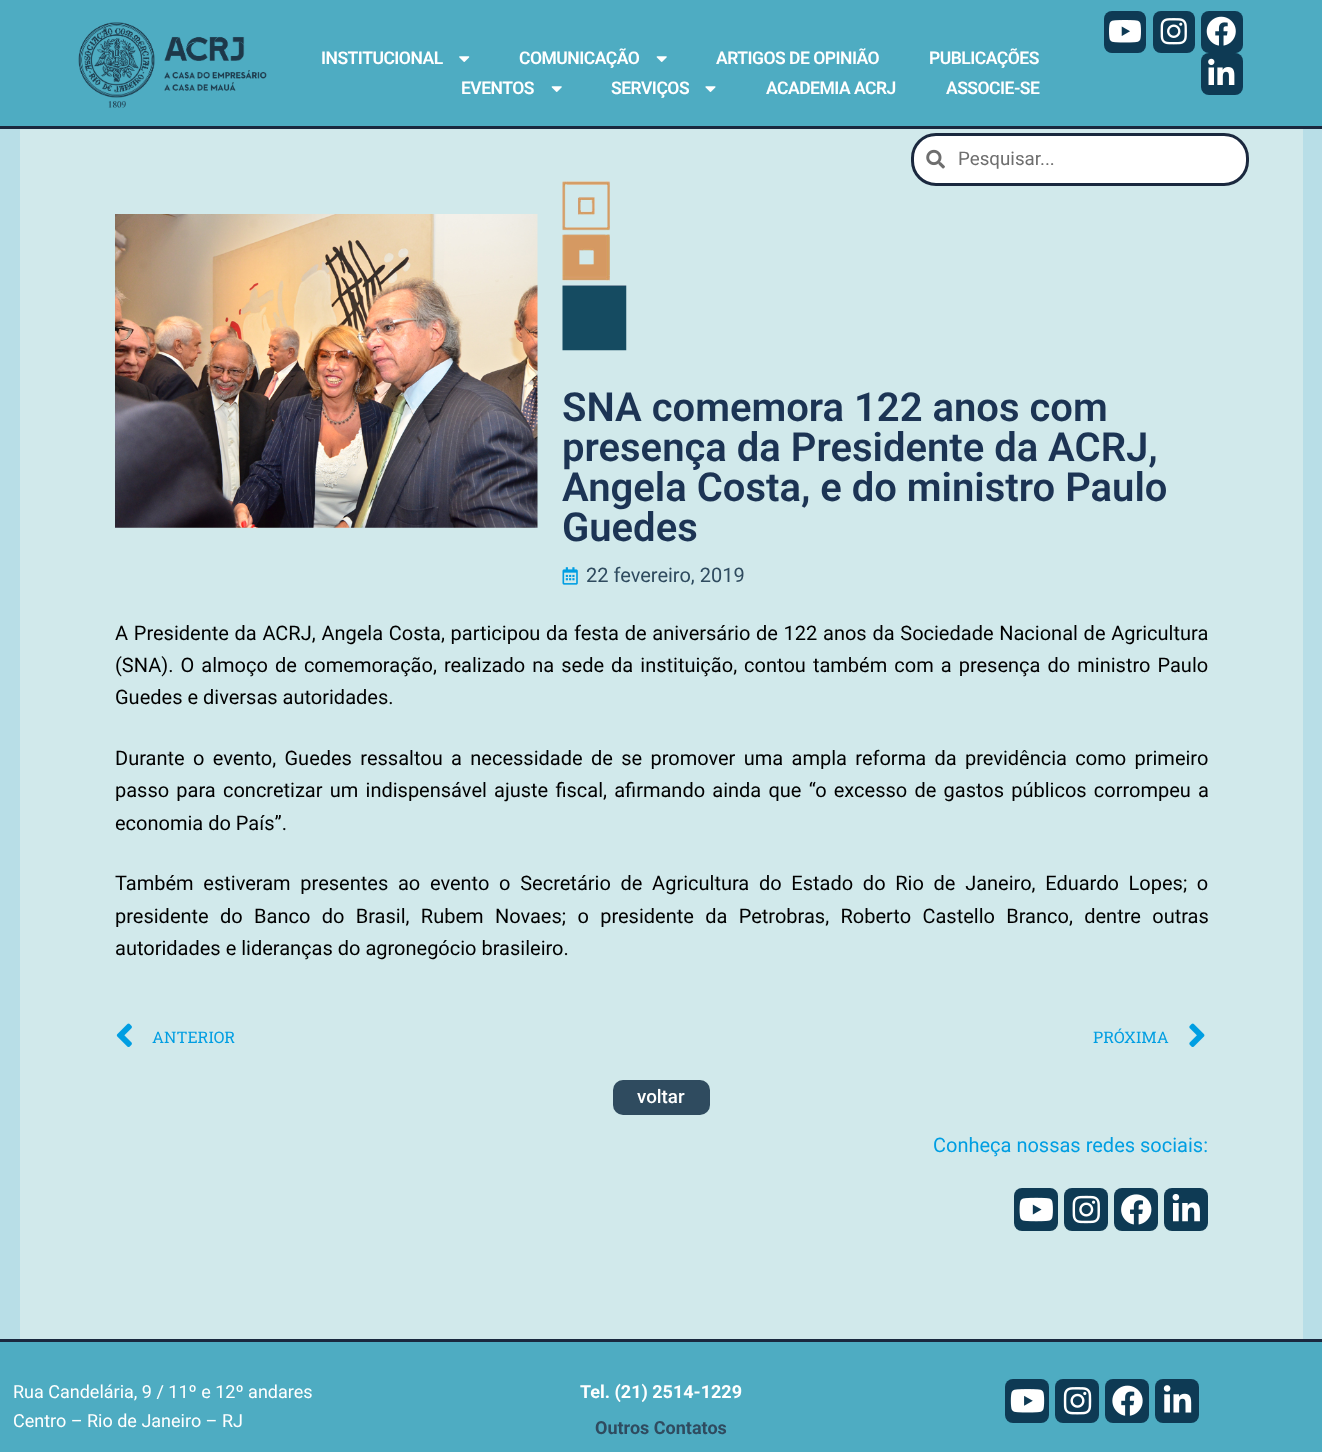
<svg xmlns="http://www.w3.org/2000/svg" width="1322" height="1452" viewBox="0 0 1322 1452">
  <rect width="100%" height="100%" fill="#b8dee7"/>
  <rect x="0" y="0" width="1322" height="126" fill="#4eacc2"/>
  <rect x="0" y="126" width="1322" height="3" fill="#1a283e"/>
  <image x="78" y="22" width="189" height="86" href="img1.png"/>
  <text x="321" y="64" font-family="Roboto" font-size="17.5" font-weight="600" letter-spacing="-0.5" fill="#ffffff">INSTITUCIONAL</text>
  <image x="459" y="56" width="11" height="6" href="img2.png"/>
  <text x="519" y="64" font-family="Roboto" font-size="17.5" font-weight="600" letter-spacing="-0.5" fill="#ffffff">COMUNICAÇÃO</text>
  <image x="656" y="56" width="11" height="6" href="img3.png"/>
  <text x="716" y="64" font-family="Roboto" font-size="17.5" font-weight="600" letter-spacing="-0.5" fill="#ffffff">ARTIGOS DE OPINIÃO</text>
  <text x="929" y="64" font-family="Roboto" font-size="17.5" font-weight="600" letter-spacing="-0.5" fill="#ffffff">PUBLICAÇÕES</text>
  <text x="461" y="94" font-family="Roboto" font-size="17.5" font-weight="600" letter-spacing="-0.5" fill="#ffffff">EVENTOS</text>
  <image x="551" y="86" width="11" height="6" href="img3.png"/>
  <text x="611" y="94" font-family="Roboto" font-size="17.5" font-weight="600" letter-spacing="-0.5" fill="#ffffff">SERVIÇOS</text>
  <image x="705" y="86" width="11" height="6" href="img4.png"/>
  <text x="766" y="94" font-family="Roboto" font-size="17.5" font-weight="600" letter-spacing="-0.5" fill="#ffffff">ACADEMIA ACRJ</text>
  <text x="946" y="94" font-family="Roboto" font-size="17.5" font-weight="600" letter-spacing="-0.5" fill="#ffffff">ASSOCIE-SE</text>
  <rect x="20" y="129" width="1283" height="1210" fill="#d1e9eb"/>
  <rect x="912.5" y="134.5" width="335" height="50" rx="23.5" fill="#ffffff" stroke="#1a283e" stroke-width="3"/>
  <image x="926" y="149" width="19" height="20" href="img5.png"/>
  <text x="958" y="165" font-family="Roboto" font-size="18.75" fill="#6e6e6e">Pesquisar...</text>
  <rect x="1104" y="11" width="42" height="42" rx="8" fill="#0e3a54"/>
  <image x="1109" y="20" width="32" height="23" href="img6.png"/>
  <rect x="1153" y="11" width="42" height="42" rx="8" fill="#0e3a54"/>
  <image x="1160" y="18" width="27" height="27" href="img7.png"/>
  <rect x="1201" y="11" width="42" height="42" rx="8" fill="#0e3a54"/>
  <image x="1206" y="16" width="30" height="30" href="img8.png"/>
  <rect x="1201" y="53" width="42" height="42" rx="8" fill="#0e3a54"/>
  <image x="1208" y="58" width="27" height="27" href="img9.png"/>
  <image x="115" y="214" width="423" height="314" href="img10.png"/>
  <image x="562" y="181" width="65" height="170" href="img11.png"/>
  <text x="562" y="421" font-family="Roboto" font-size="40" font-weight="600" fill="#1c3454">SNA comemora 122 anos com</text>
  <text x="562" y="461" font-family="Roboto" font-size="40" font-weight="600" fill="#1c3454">presença da Presidente da ACRJ,</text>
  <text x="562" y="501" font-family="Roboto" font-size="40" font-weight="600" fill="#1c3454">Angela Costa, e do ministro Paulo</text>
  <text x="562" y="541" font-family="Roboto" font-size="40" font-weight="600" fill="#1c3454">Guedes</text>
  <image x="562" y="567" width="16" height="18" href="img12.png"/>
  <text x="586" y="582" font-family="Roboto" font-size="20" fill="#2f4b5f">22 fevereiro, 2019</text>
  <text x="115" y="640" word-spacing="0.75" font-family="Roboto" font-size="20" fill="#000000">A Presidente da ACRJ, Angela Costa, participou da festa de aniversário de 122 anos da Sociedade Nacional de Agricultura</text>
  <text x="115" y="672" word-spacing="2.1" font-family="Roboto" font-size="20" fill="#000000">(SNA). O almoço de comemoração, realizado na sede da instituição, contou também com a presença do ministro Paulo</text>
  <text x="115" y="704" font-family="Roboto" font-size="20" fill="#000000">Guedes e diversas autoridades.</text>
  <text x="115" y="765" word-spacing="3.4" font-family="Roboto" font-size="20" fill="#000000">Durante o evento, Guedes ressaltou a necessidade de se promover uma ampla reforma da previdência como primeiro</text>
  <text x="115" y="797" word-spacing="2.25" font-family="Roboto" font-size="20" fill="#000000">passo para concretizar um indispensável ajuste fiscal, afirmando ainda que “o excesso de gastos públicos corrompeu a</text>
  <text x="115" y="830" font-family="Roboto" font-size="20" fill="#000000">economia do País”.</text>
  <text x="115" y="890" word-spacing="4.75" font-family="Roboto" font-size="20" fill="#000000">Também estiveram presentes ao evento o Secretário de Agricultura do Estado do Rio de Janeiro, Eduardo Lopes; o</text>
  <text x="115" y="923" word-spacing="6.4" font-family="Roboto" font-size="20" fill="#000000">presidente do Banco do Brasil, Rubem Novaes; o presidente da Petrobras, Roberto Castello Branco, dentre outras</text>
  <text x="115" y="955" font-family="Roboto" font-size="20" fill="#000000">autoridades e lideranças do agronegócio brasileiro.</text>
  <image x="116" y="1023" width="16" height="24" href="img13.png"/>
  <text x="152" y="1043" font-family="Roboto Slab" font-size="16" fill="#009ee2">ANTERIOR</text>
  <text x="1093" y="1043" font-family="Roboto Slab" font-size="16" fill="#009ee2">PRÓXIMA</text>
  <image x="1189" y="1023" width="16" height="24" href="img14.png"/>
  <rect x="613" y="1080" width="97" height="35" rx="10" fill="#2f4b5f"/>
  <text x="637" y="1103" font-family="Roboto" font-size="18.75" font-weight="500" fill="#ffffff">voltar</text>
  <text x="933" y="1152" font-family="Roboto" font-size="20" fill="#009ee2">Conheça nossas redes sociais:</text>
  <rect x="1014" y="1188" width="44" height="43" rx="8" fill="#0e3a54"/>
  <image x="1019" y="1197" width="34" height="25" href="img15.png"/>
  <rect x="1064" y="1188" width="44" height="43" rx="8" fill="#0e3a54"/>
  <image x="1072" y="1195" width="28" height="29" href="img16.png"/>
  <rect x="1114" y="1188" width="44" height="43" rx="8" fill="#0e3a54"/>
  <image x="1121" y="1194" width="31" height="31" href="img17.png"/>
  <rect x="1164" y="1188" width="44" height="43" rx="8" fill="#0e3a54"/>
  <image x="1172" y="1193" width="28" height="29" href="img18.png"/>
  <rect x="0" y="1342" width="1322" height="110" fill="#4eacc2"/>
  <rect x="0" y="1339" width="1322" height="3" fill="#1a283e"/>
  <text x="13" y="1398" font-family="Roboto" font-size="18" fill="#ffffff">Rua Candelária, 9 / 11º e 12º andares</text>
  <text x="13" y="1427" font-family="Roboto" font-size="18" fill="#ffffff">Centro – Rio de Janeiro – RJ</text>
  <text x="580" y="1398" font-family="Roboto" font-size="18" font-weight="bold" fill="#ffffff">Tel. (21) 2514-1229</text>
  <text x="595" y="1434" font-family="Roboto" font-size="18" font-weight="bold" fill="#2f4b5f">Outros Contatos</text>
  <rect x="1005" y="1379" width="44" height="44" rx="8" fill="#0e3a54"/>
  <image x="1010" y="1389" width="35" height="24" href="img19.png"/>
  <rect x="1055" y="1379" width="44" height="44" rx="8" fill="#0e3a54"/>
  <image x="1063" y="1387" width="29" height="28" href="img20.png"/>
  <rect x="1105" y="1379" width="44" height="44" rx="8" fill="#0e3a54"/>
  <image x="1112" y="1385" width="31" height="31" href="img21.png"/>
  <rect x="1155" y="1379" width="44" height="44" rx="8" fill="#0e3a54"/>
  <image x="1163" y="1385" width="29" height="28" href="img22.png"/>
</svg>
